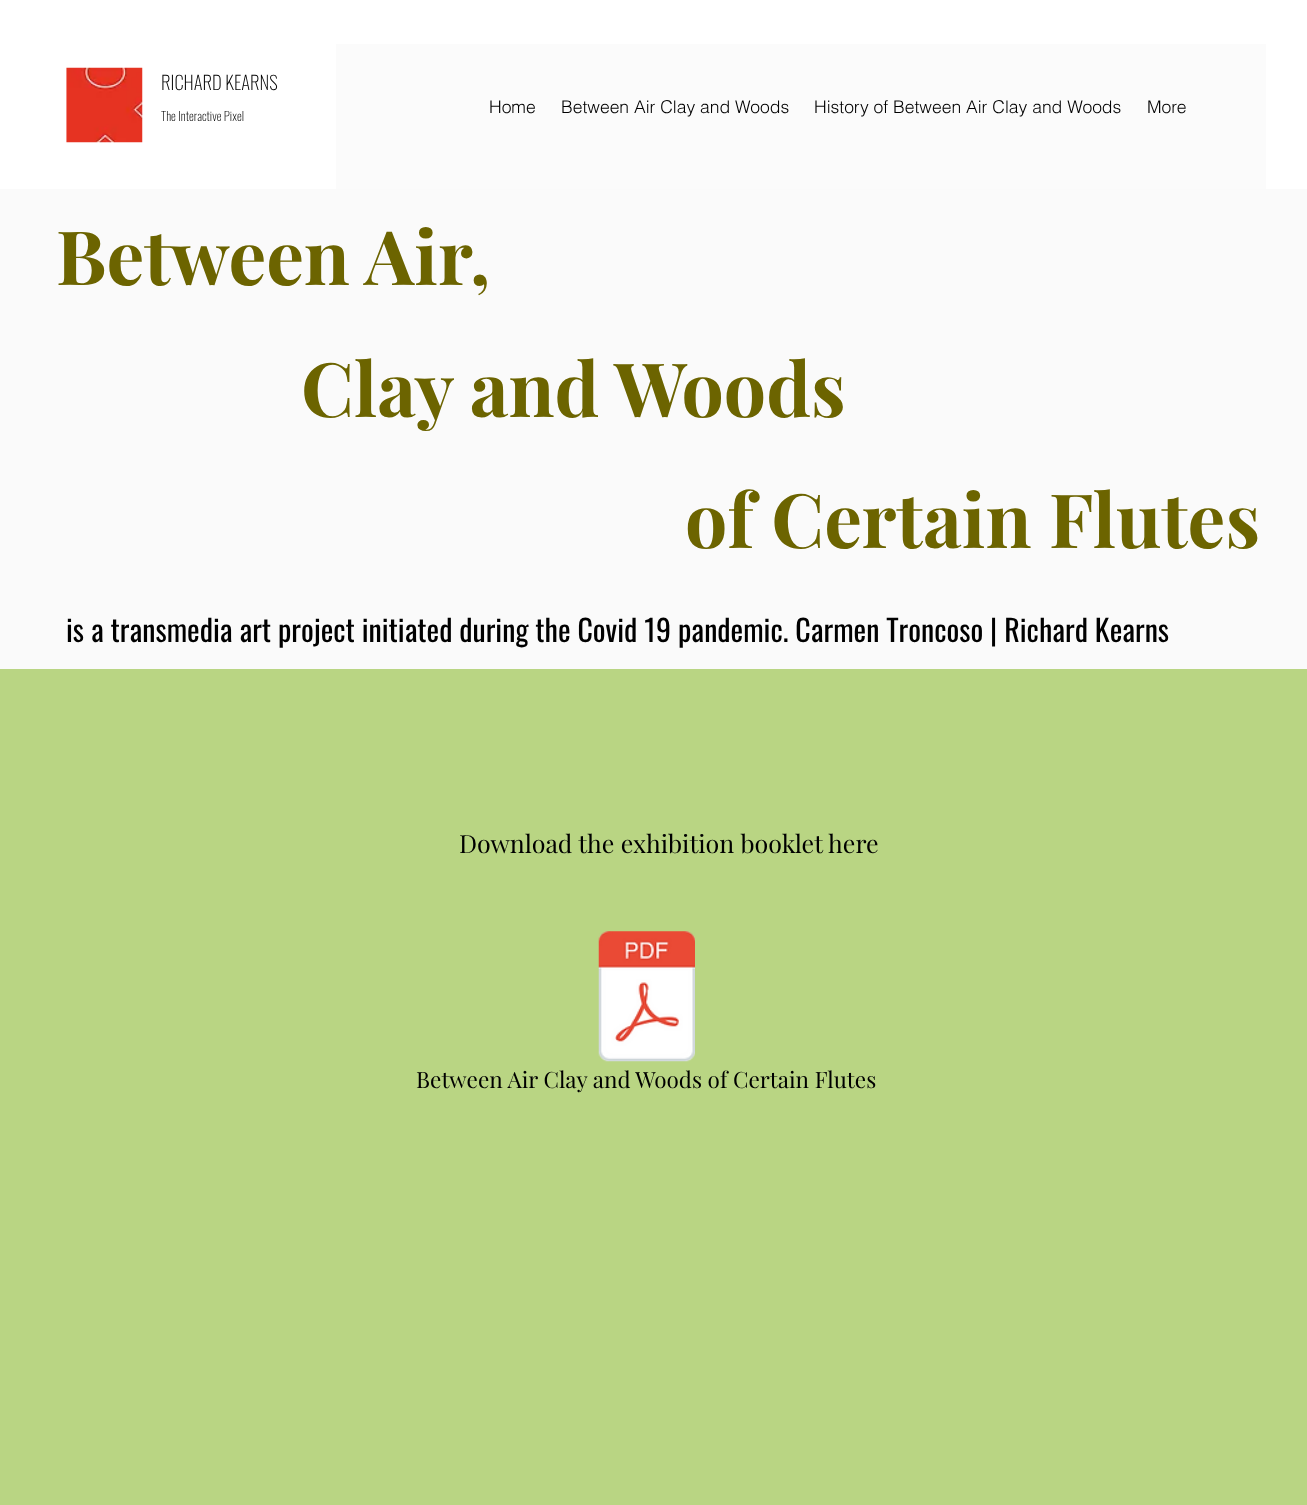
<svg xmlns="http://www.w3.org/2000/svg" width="1307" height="1505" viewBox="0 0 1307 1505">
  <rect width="100%" height="100%" fill="#b9d583"/>
  <rect x="0" y="0" width="1307" height="189" fill="#ffffff"/>
  <image x="66" y="67" width="77" height="76" href="img1.png"/>
  <text x="161" y="90" font-family="Oswald" font-size="18.75" font-weight="200" fill="#000000">RICHARD KEARNS</text>
  <text x="161" y="121" font-family="Oswald" font-size="12.5" font-weight="200" fill="#000000">The Interactive Pixel</text>
  <rect x="336" y="44" width="930" height="145" fill="#fbfbfb"/>
  <text x="489" y="113" font-family="helvetica" font-size="17.5" font-weight="300" fill="#000000">Home</text>
  <text x="561" y="113" font-family="helvetica" font-size="17.5" font-weight="300" fill="#000000">Between Air Clay and Woods</text>
  <text x="814" y="113" font-family="helvetica" font-size="17.5" font-weight="300" fill="#000000">History of Between Air Clay and Woods</text>
  <text x="1147" y="113" font-family="helvetica" font-size="17.5" font-weight="300" fill="#000000">More</text>
  <rect x="0" y="189" width="1307" height="480" fill="#fafafa"/>
  <text x="56" y="285" font-family="Playfair Display" font-size="75" font-weight="bold" fill="#6c6400">Between Air,</text>
  <text x="301" y="417" font-family="Playfair Display" font-size="75" font-weight="bold" fill="#6c6400">Clay and Woods</text>
  <text x="685" y="548" font-family="Playfair Display" font-size="75" font-weight="bold" fill="#6c6400">of Certain Flutes</text>
  <text x="66" y="642" font-family="Oswald" font-size="30" fill="#000000">is a transmedia art project initiated during the Covid 19 pandemic. Carmen Troncoso | Richard Kearns</text>
  <text x="459" y="853" font-family="Playfair Display" font-size="25" fill="#000000">Download the exhibition booklet here</text>
  <image x="598" y="931" width="97" height="131" href="img2.png"/>
  <text x="416" y="1088" font-family="Playfair Display" font-size="22.5" fill="#000000">Between Air Clay and Woods of Certain Flutes</text>
</svg>
